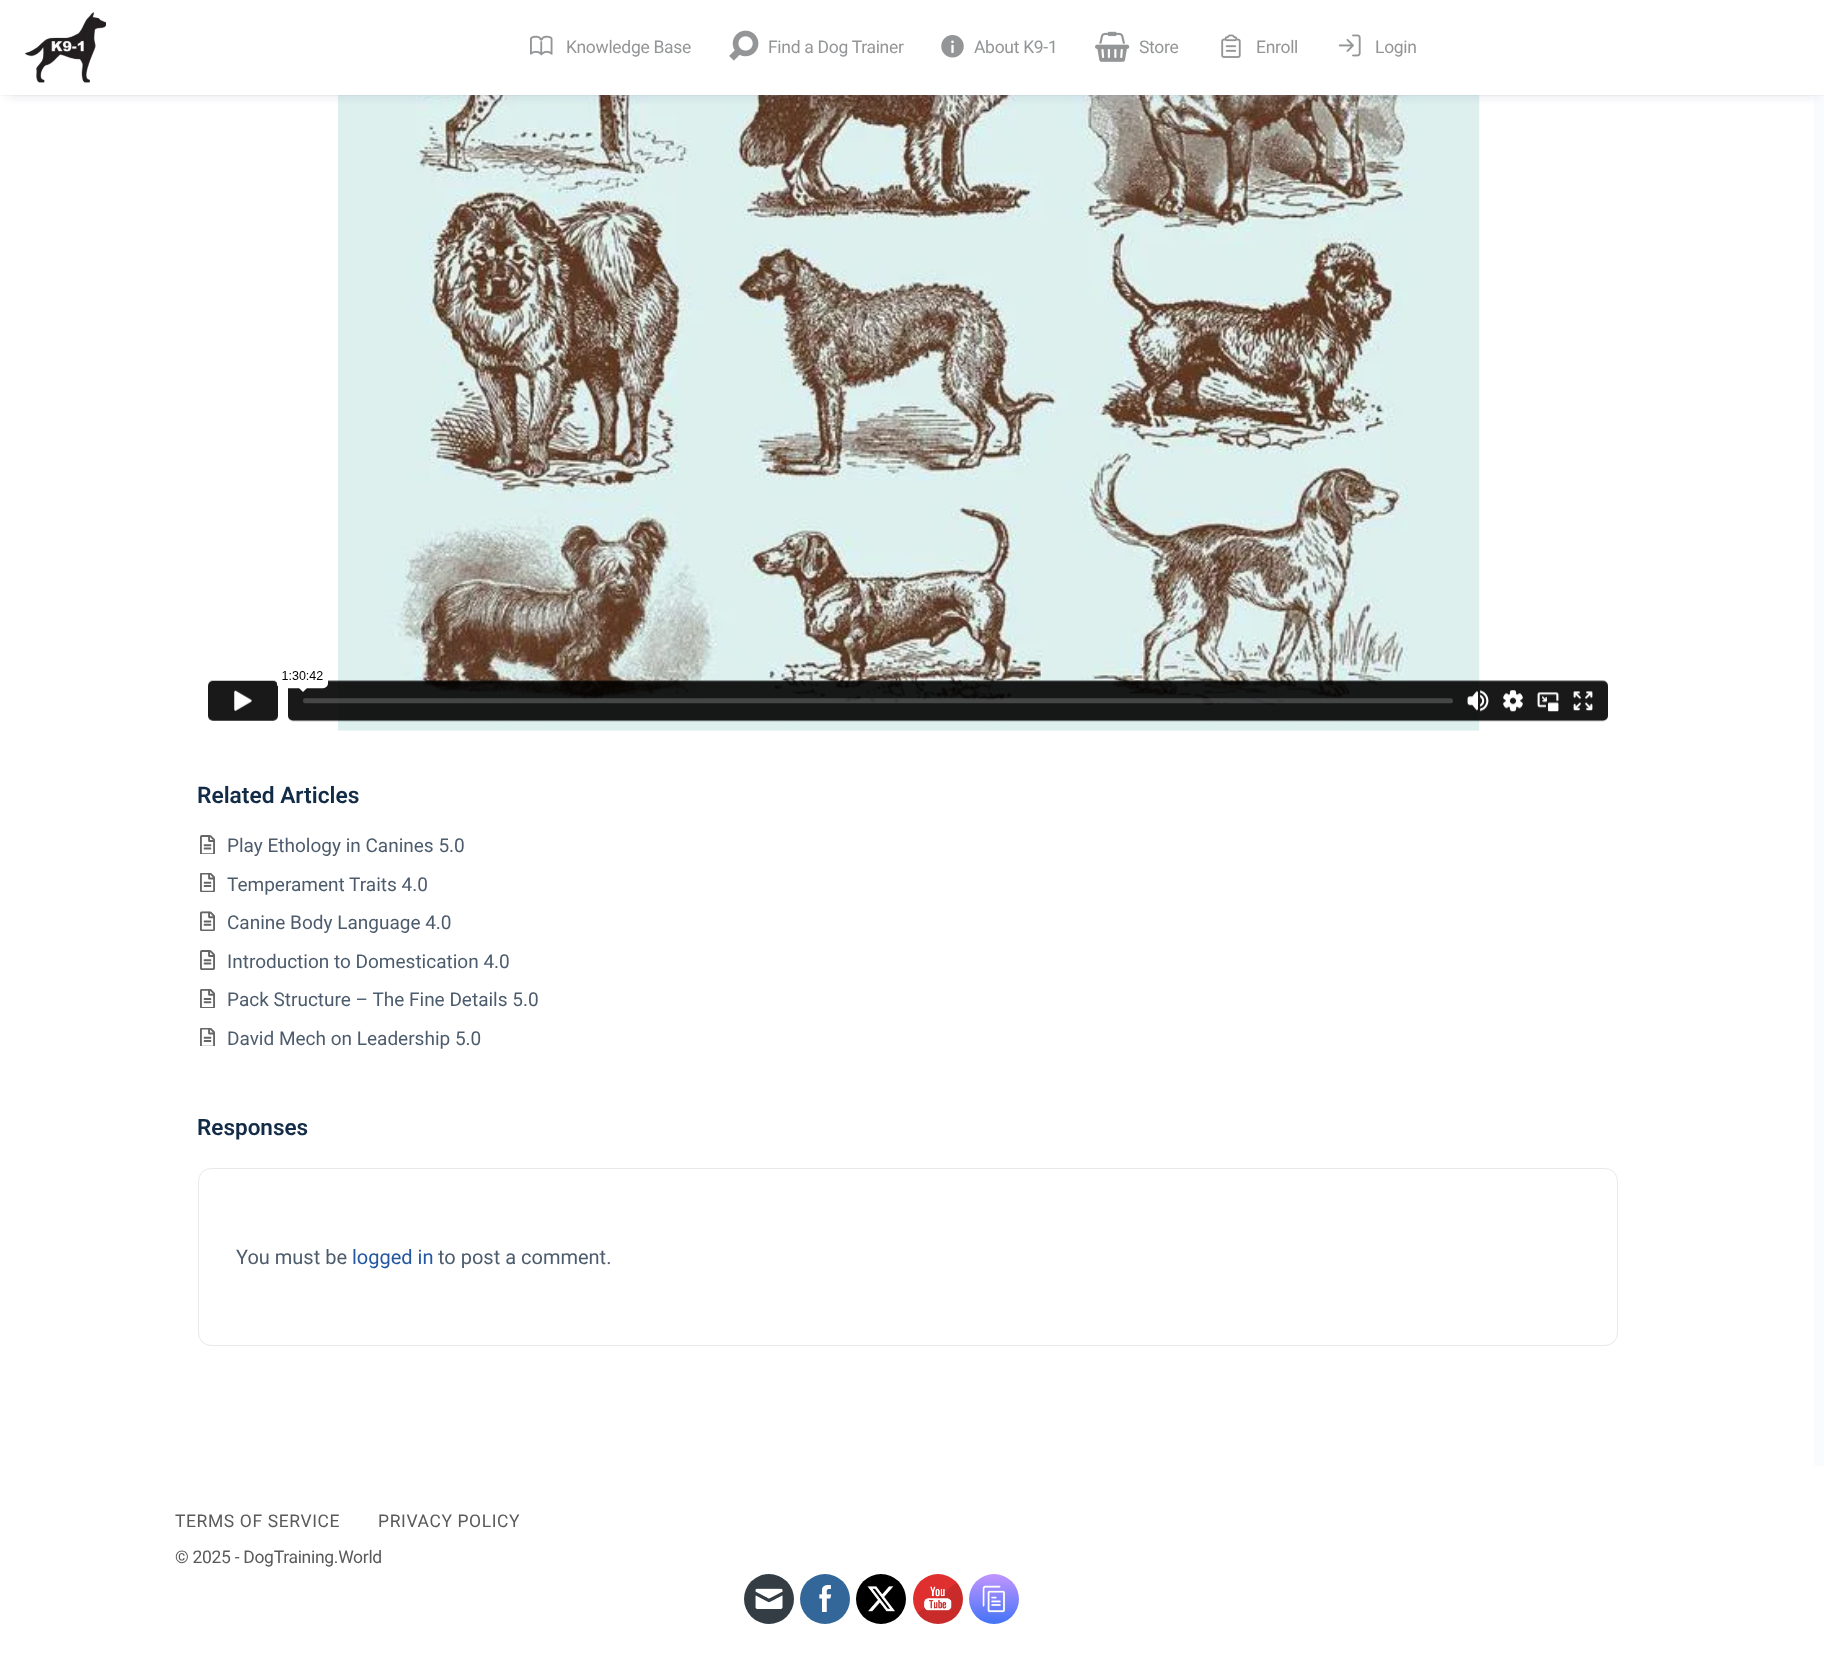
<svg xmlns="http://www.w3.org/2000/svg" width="1824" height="1667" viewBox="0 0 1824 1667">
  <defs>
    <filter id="blur1" x="-50%" y="-200%" width="200%" height="500%"><feGaussianBlur stdDeviation="6"/></filter>
    <linearGradient id="g1" gradientUnits="userSpaceOnUse" x1="916" y1="1571" x2="959" y2="1626"><stop offset="0.14" stop-color="#e02f2f"/><stop offset="0.49" stop-color="#e02f2f"/><stop offset="0.49" stop-color="#c92a2a"/><stop offset="0.85" stop-color="#c92a2a"/></linearGradient>
    <linearGradient id="g2" gradientUnits="userSpaceOnUse" x1="994" y1="1574" x2="994" y2="1624"><stop offset="0" stop-color="#c295ff"/><stop offset="1" stop-color="#4273f7"/></linearGradient>
  </defs>
  <rect width="100%" height="100%" fill="#fafbfd"/>
  <rect x="0" y="95" width="1814" height="1371" fill="#ffffff"/>
  <image x="208" y="95" width="1400" height="636" href="img8.png"/>
  <rect x="9" y="15" width="1807" height="78" fill="#41476c" fill-opacity="0.25" filter="url(#blur1)"/>
  <rect x="0" y="95" width="1824" height="1" fill="#8b8d9d" fill-opacity="0.05"/>
  <rect x="0" y="0" width="1824" height="95" fill="#ffffff"/>
  <image x="25" y="12" width="81" height="71" href="img1.png"/>
  <image x="530" y="35" width="23" height="21" href="img2.png"/>
  <text x="566" y="53" font-family="Roboto" font-size="17.5" letter-spacing="-0.3" fill="#939597">Knowledge Base</text>
  <image x="729" y="30" width="30" height="31" href="img3.png"/>
  <text x="768" y="53" font-family="Roboto" font-size="17.5" letter-spacing="-0.3" fill="#939597">Find a Dog Trainer</text>
  <image x="941" y="35" width="23" height="23" href="img4.png"/>
  <text x="974" y="53" font-family="Roboto" font-size="17.5" letter-spacing="-0.3" fill="#939597">About K9-1</text>
  <image x="1095" y="31" width="35" height="31" href="img5.png"/>
  <text x="1139" y="53" font-family="Roboto" font-size="17.5" letter-spacing="-0.3" fill="#939597">Store</text>
  <image x="1221" y="34" width="20" height="24" href="img6.png"/>
  <text x="1256" y="53" font-family="Roboto" font-size="17.5" letter-spacing="-0.3" fill="#939597">Enroll</text>
  <image x="1338" y="34" width="23" height="23" href="img7.png"/>
  <text x="1375" y="53" font-family="Roboto" font-size="17.5" letter-spacing="-0.3" fill="#939597">Login</text>
  <text x="197" y="803" font-family="Roboto" font-size="22.75" font-weight="600" fill="#122b46">Related Articles</text>
  <image x="200" y="835" width="15" height="19" href="img9.png"/>
  <text x="227" y="852" font-family="Roboto" font-size="19" fill="#4d5c6d">Play Ethology in Canines 5.0</text>
  <image x="200" y="873" width="15" height="19" href="img10.png"/>
  <text x="227" y="891" font-family="Roboto" font-size="19" fill="#4d5c6d">Temperament Traits 4.0</text>
  <image x="200" y="911" width="15" height="20" href="img11.png"/>
  <text x="227" y="929" font-family="Roboto" font-size="19" fill="#4d5c6d">Canine Body Language 4.0</text>
  <image x="200" y="950" width="15" height="20" href="img12.png"/>
  <text x="227" y="968" font-family="Roboto" font-size="19" fill="#4d5c6d">Introduction to Domestication 4.0</text>
  <image x="200" y="989" width="15" height="19" href="img13.png"/>
  <text x="227" y="1006" font-family="Roboto" font-size="19" fill="#4d5c6d">Pack Structure – The Fine Details 5.0</text>
  <image x="200" y="1028" width="15" height="18" href="img14.png"/>
  <text x="227" y="1045" font-family="Roboto" font-size="19" fill="#4d5c6d">David Mech on Leadership 5.0</text>
  <text x="197" y="1135" font-family="Roboto" font-size="22.5" font-weight="600" fill="#122b46">Responses</text>
  <rect x="198.5" y="1168.5" width="1419" height="177" rx="12.5" fill="none" stroke="#e7e9ec"/>
  <text x="236" y="1264" font-family="Roboto" font-size="20" fill="#4d5c6d">You must be</text>
  <text x="352" y="1264" font-family="Roboto" font-size="20" fill="#2358a1">logged in</text>
  <text x="438" y="1264" font-family="Roboto" font-size="20" fill="#4d5c6d">to post a comment.</text>
  <rect x="0" y="1466" width="1824" height="201" fill="#ffffff"/>
  <text x="175" y="1527" font-family="Roboto" font-size="17.5" letter-spacing="0.6" fill="#5a5a5a">TERMS OF SERVICE</text>
  <text x="378" y="1527" font-family="Roboto" font-size="17.5" letter-spacing="0.6" fill="#5a5a5a">PRIVACY POLICY</text>
  <text x="175" y="1563" font-family="Roboto" font-size="17.5" letter-spacing="-0.3" fill="#5a5a5a">© 2025 - DogTraining.World</text>
  <circle cx="769" cy="1599" r="25" fill="#343d44"/>
  <image x="755" y="1588" width="28" height="21" href="img15.png"/>
  <circle cx="825" cy="1599" r="25" fill="#336699"/>
  <image x="819" y="1585" width="13" height="27" href="img16.png"/>
  <circle cx="881" cy="1599" r="25" fill="#000000"/>
  <image x="867" y="1586" width="28" height="26" href="img17.png"/>
  <circle cx="938" cy="1599" r="25" fill="url(#g1)"/>
  <image x="924" y="1586" width="28" height="25" href="img18.png"/>
  <circle cx="994" cy="1599" r="25" fill="url(#g2)"/>
  <image x="982" y="1585" width="24" height="28" href="img19.png"/>
</svg>
